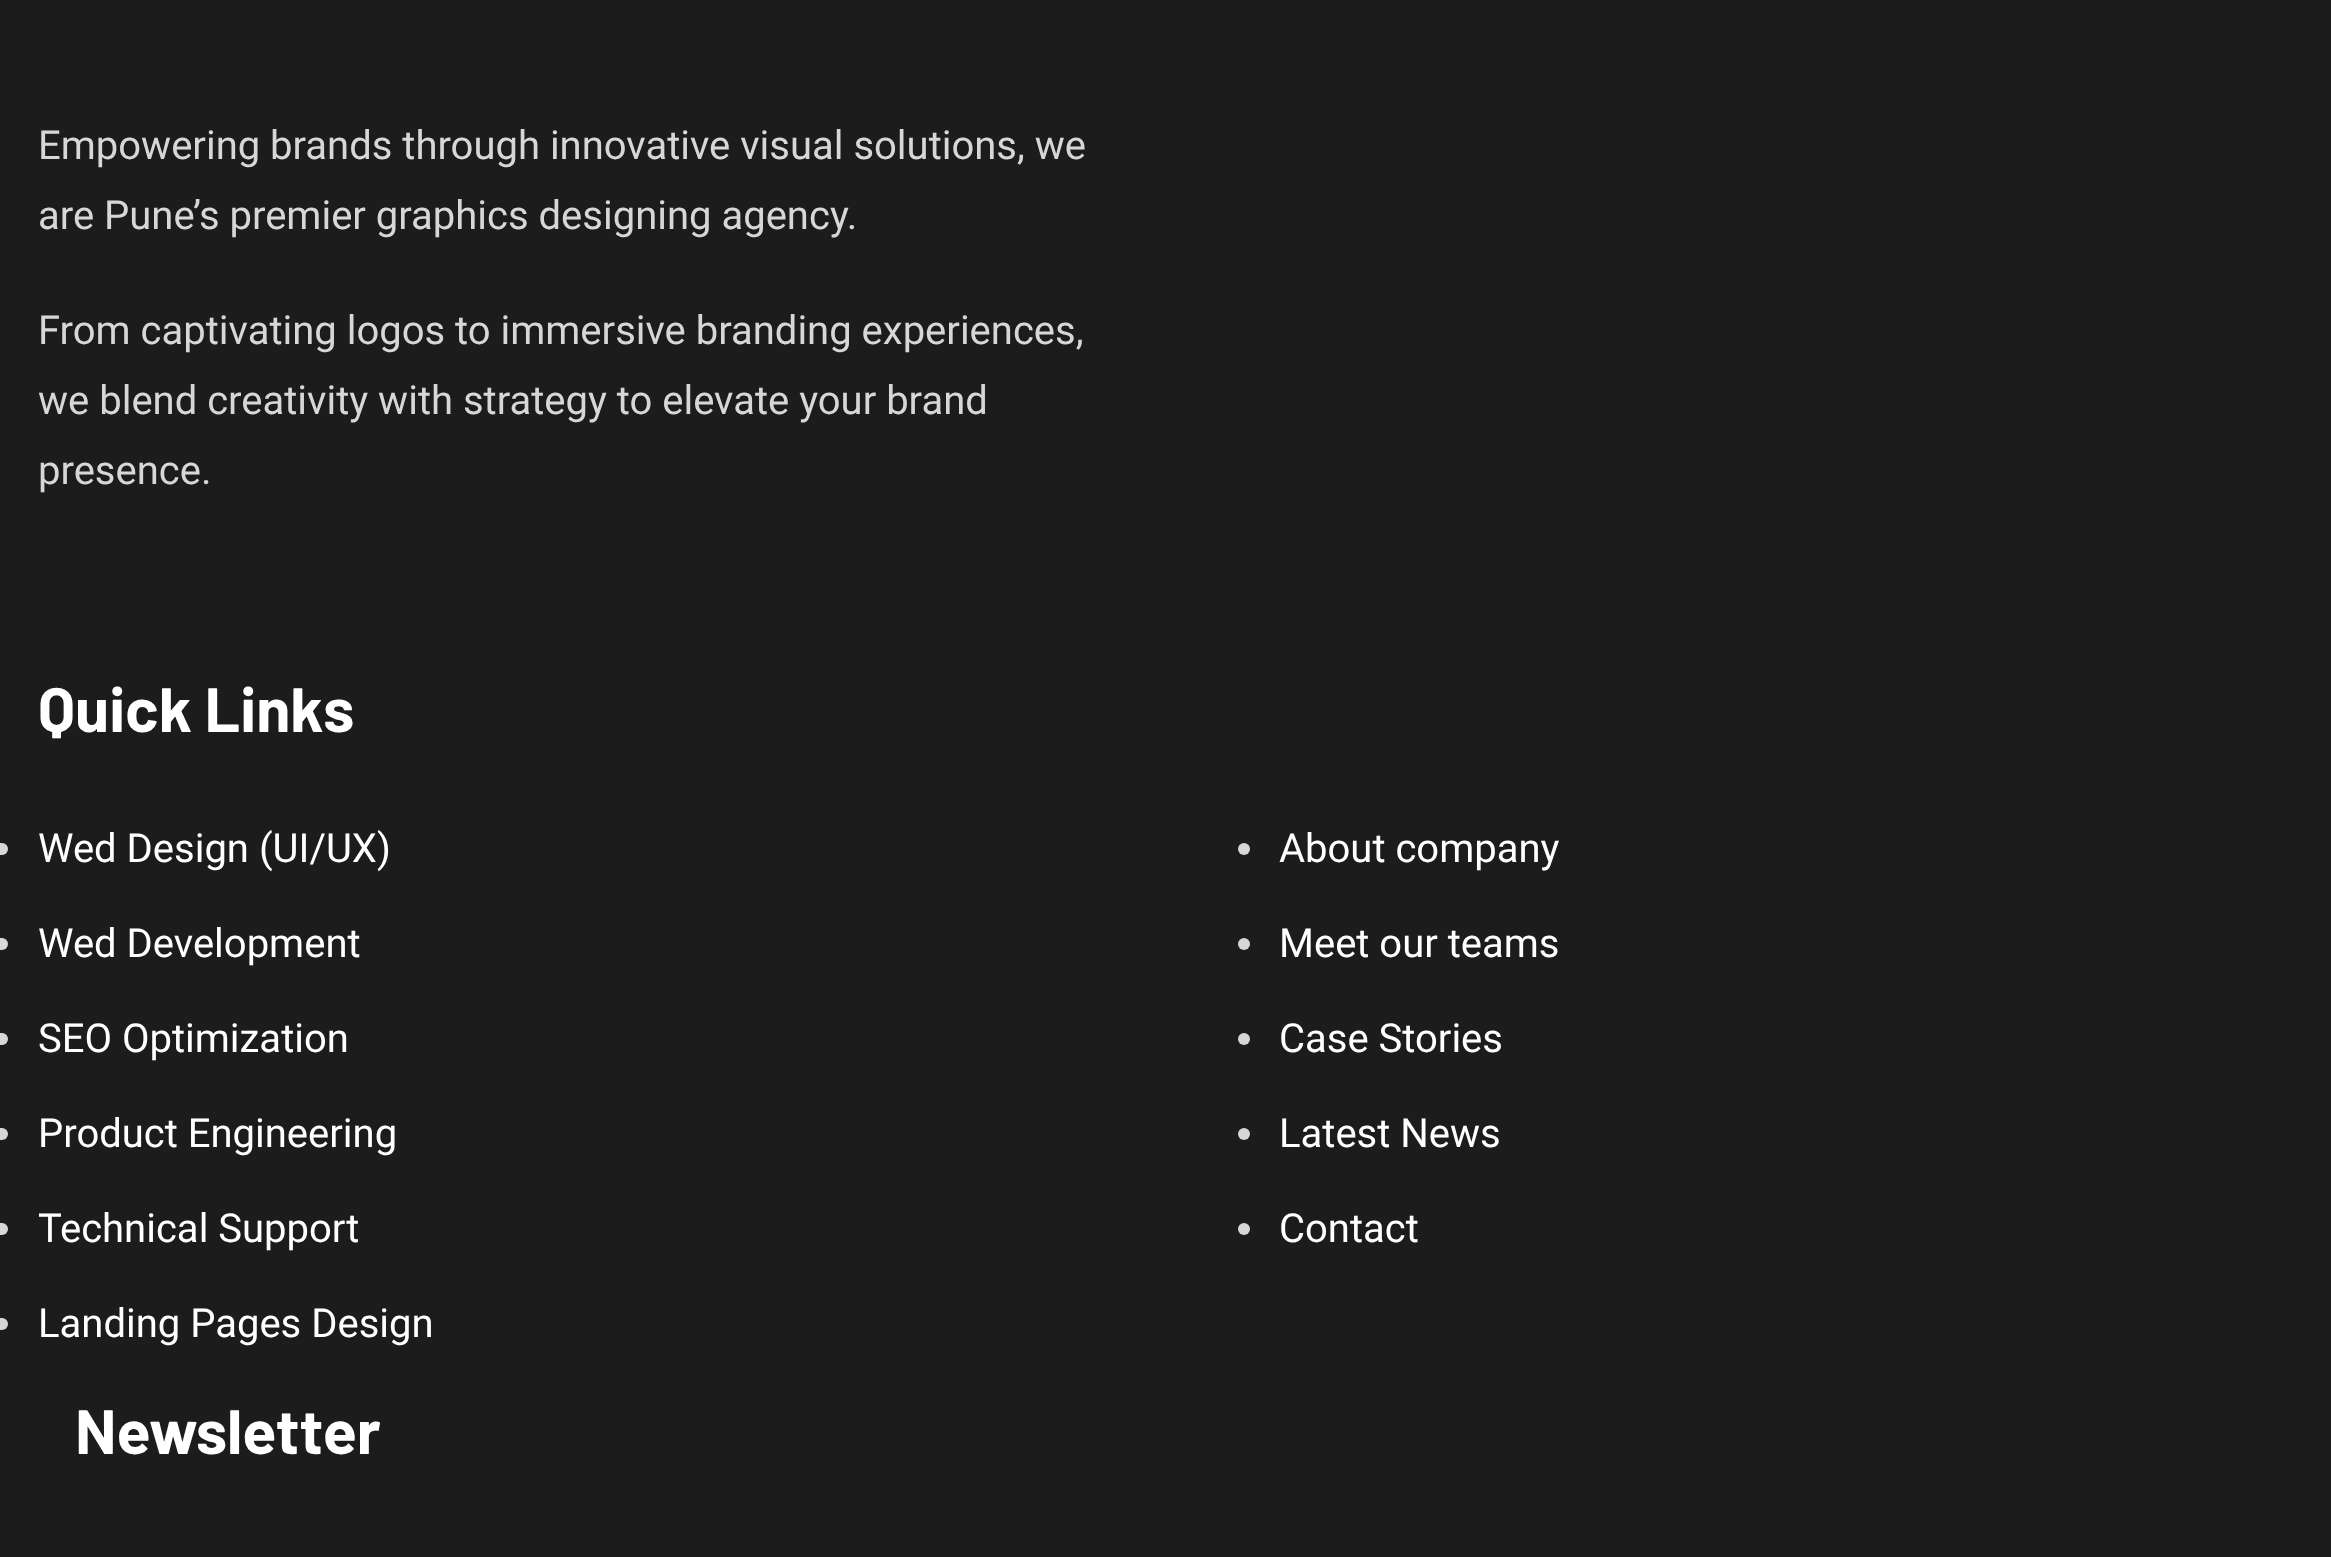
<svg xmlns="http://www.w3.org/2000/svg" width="2331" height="1557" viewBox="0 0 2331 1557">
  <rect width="100%" height="100%" fill="#1c1c1c"/>
  <text x="38" y="159" font-family="Roboto" font-size="40" fill="#d7d7d7">Empowering brands through innovative visual solutions, we</text>
  <text x="38" y="229" font-family="Roboto" font-size="40" fill="#d7d7d7">are Pune’s premier graphics designing agency.</text>
  <text x="38" y="344" font-family="Roboto" font-size="40" fill="#d7d7d7">From captivating logos to immersive branding experiences,</text>
  <text x="38" y="414" font-family="Roboto" font-size="40" fill="#d7d7d7">we blend creativity with strategy to elevate your brand</text>
  <text x="38" y="484" font-family="Roboto" font-size="40" fill="#d7d7d7">presence.</text>
  <text x="38" y="732" font-family="Barlow" font-size="62.5" font-weight="bold" fill="#ffffff">Quick Links</text>
  <rect x="-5" y="843" width="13" height="12" rx="6" fill="#d7d7d7"/>
  <text x="38" y="862" font-family="Roboto" font-size="40" fill="#ffffff">Wed Design (UI/UX)</text>
  <rect x="-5" y="938" width="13" height="12" rx="6" fill="#d7d7d7"/>
  <text x="38" y="957" font-family="Roboto" font-size="40" fill="#ffffff">Wed Development</text>
  <rect x="-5" y="1033" width="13" height="12" rx="6" fill="#d7d7d7"/>
  <text x="38" y="1052" font-family="Roboto" font-size="40" fill="#ffffff">SEO Optimization</text>
  <rect x="-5" y="1128" width="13" height="12" rx="6" fill="#d7d7d7"/>
  <text x="38" y="1147" font-family="Roboto" font-size="40" fill="#ffffff">Product Engineering</text>
  <rect x="-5" y="1223" width="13" height="12" rx="6" fill="#d7d7d7"/>
  <text x="38" y="1242" font-family="Roboto" font-size="40" fill="#ffffff">Technical Support</text>
  <rect x="-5" y="1318" width="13" height="12" rx="6" fill="#d7d7d7"/>
  <text x="38" y="1337" font-family="Roboto" font-size="40" fill="#ffffff">Landing Pages Design</text>
  <circle cx="1244" cy="849" r="6" fill="#d7d7d7"/>
  <text x="1279" y="862" font-family="Roboto" font-size="40" fill="#ffffff">About company</text>
  <circle cx="1244" cy="944" r="6" fill="#d7d7d7"/>
  <text x="1279" y="957" font-family="Roboto" font-size="40" fill="#ffffff">Meet our teams</text>
  <circle cx="1244" cy="1039" r="6" fill="#d7d7d7"/>
  <text x="1279" y="1052" font-family="Roboto" font-size="40" fill="#ffffff">Case Stories</text>
  <circle cx="1244" cy="1134" r="6" fill="#d7d7d7"/>
  <text x="1279" y="1147" font-family="Roboto" font-size="40" fill="#ffffff">Latest News</text>
  <circle cx="1244" cy="1229" r="6" fill="#d7d7d7"/>
  <text x="1279" y="1242" font-family="Roboto" font-size="40" fill="#ffffff">Contact</text>
  <text x="75" y="1454" font-family="Barlow" font-size="62.5" font-weight="bold" fill="#ffffff">Newsletter</text>
</svg>
